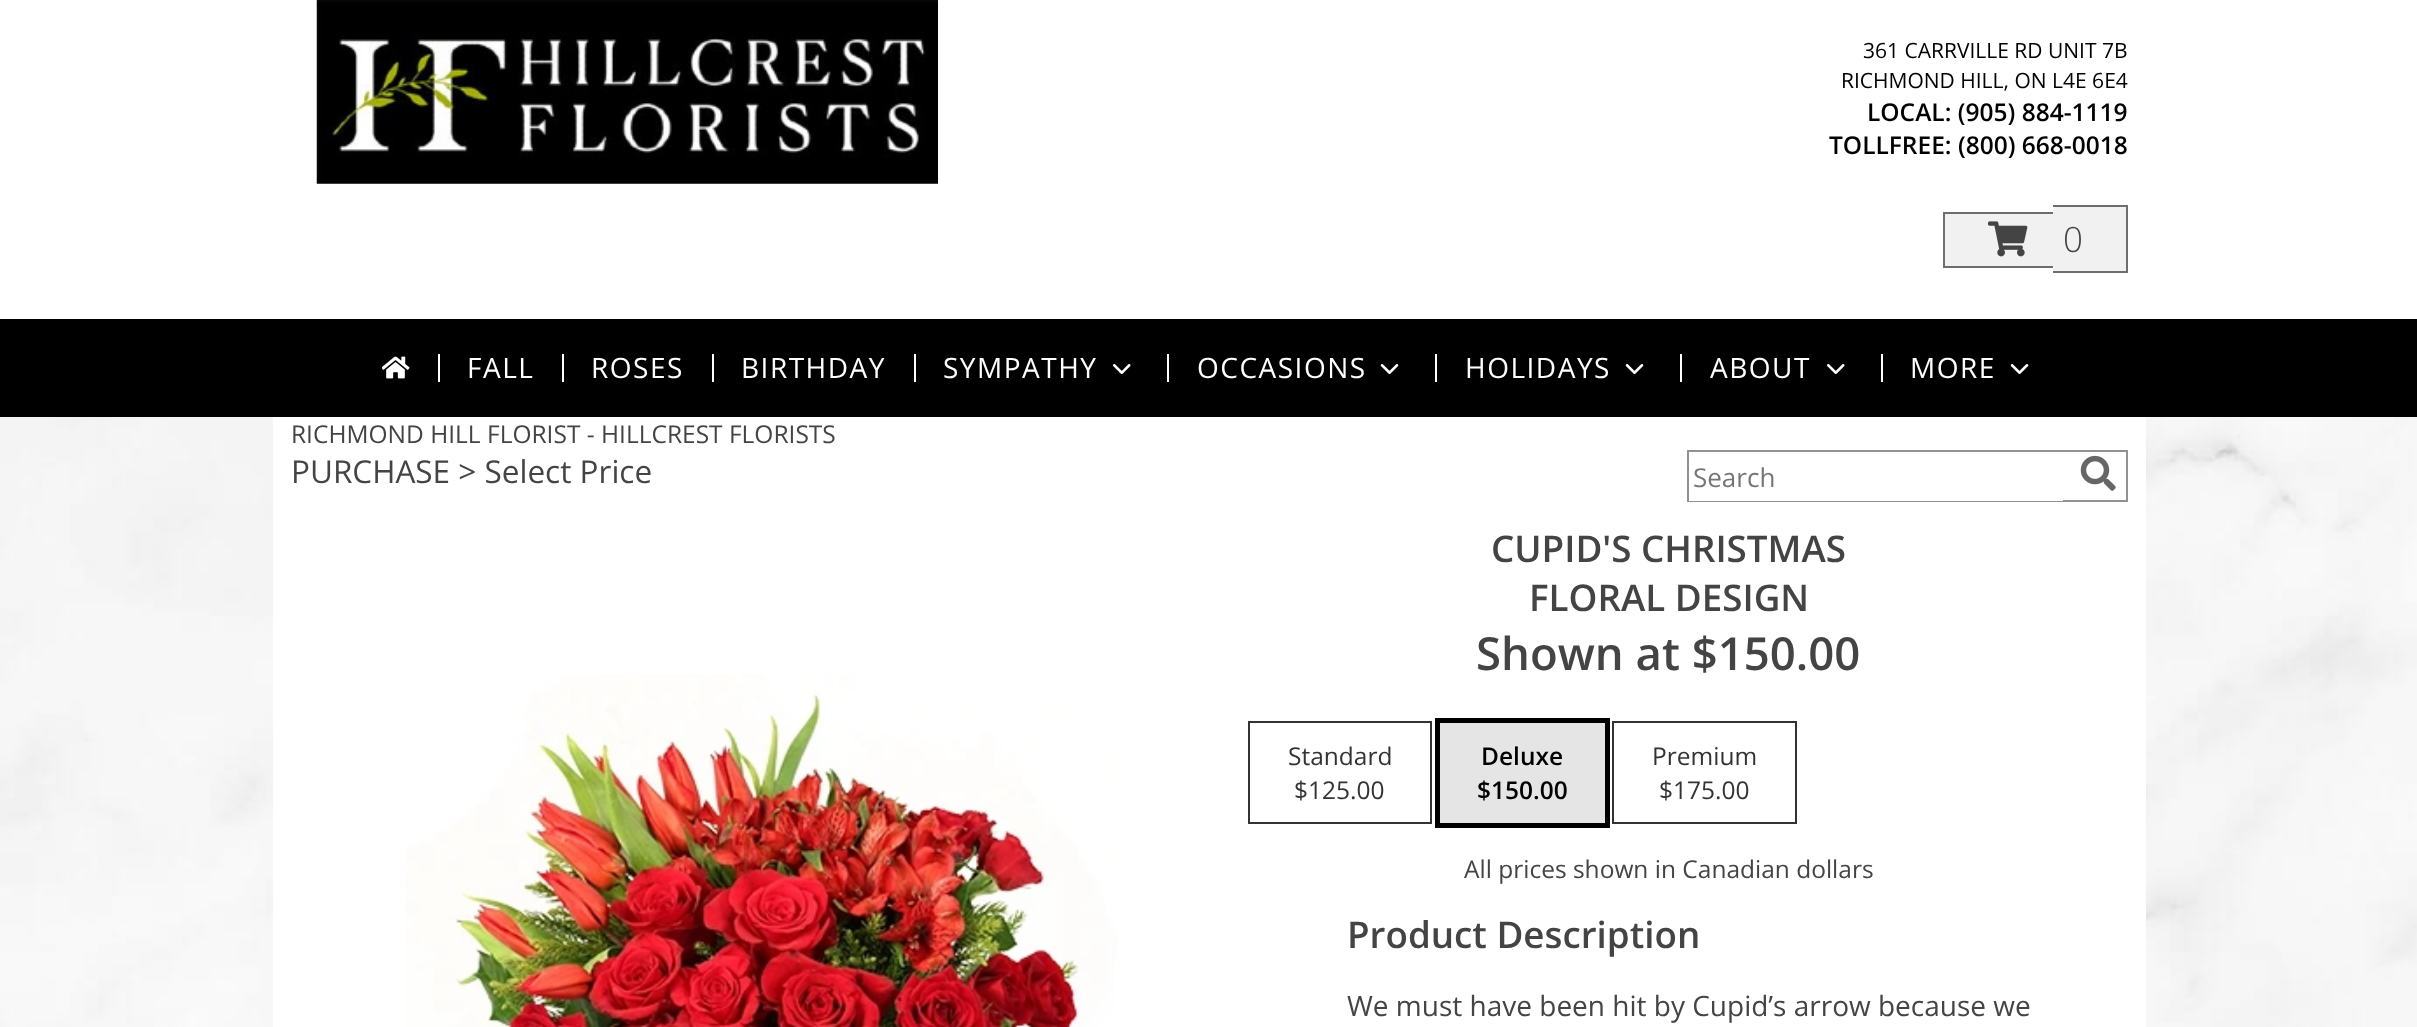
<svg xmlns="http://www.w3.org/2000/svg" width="2417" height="1027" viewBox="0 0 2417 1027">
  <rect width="100%" height="100%" fill="#ffffff"/>
  <image x="0" y="417" width="2417" height="610" href="img1.png"/>
  <rect x="273" y="417" width="1873" height="610" fill="#ffffff"/>
  <image x="316" y="0" width="622" height="184" href="img2.png"/>
  <text x="1863" y="58" font-family="Open Sans" font-size="21" fill="#000000">361 CARRVILLE RD UNIT 7B</text>
  <text x="1841" y="88" font-family="Open Sans" font-size="21" fill="#000000">RICHMOND HILL, ON L4E 6E4</text>
  <text x="1867" y="121" font-family="Open Sans" font-size="24.5" font-weight="600" fill="#000000">LOCAL: (905) 884-1119</text>
  <text x="1829" y="154" font-family="Open Sans" font-size="24.5" font-weight="600" fill="#000000">TOLLFREE: (800) 668-0018</text>
  <rect x="1945" y="214" width="108" height="52" fill="#f1f1f1"/>
  <rect x="1943" y="212" width="110" height="2" fill="#6e6e6e"/>
  <rect x="1943" y="266" width="110" height="2" fill="#6e6e6e"/>
  <rect x="1943" y="212" width="2" height="56" fill="#6e6e6e"/>
  <rect x="2053" y="207" width="73" height="64" fill="#f1f1f1"/>
  <rect x="2053" y="205" width="75" height="2" fill="#6e6e6e"/>
  <rect x="2053" y="271" width="10" height="2" fill="#6e6e6e"/>
  <rect x="2126" y="205" width="2" height="68" fill="#6e6e6e"/>
  <rect x="2063" y="271" width="65" height="2" fill="#6e6e6e"/>
  <image x="1988" y="221" width="40" height="36" href="img3.png"/>
  <text x="2063" y="252" font-family="Open Sans" font-size="35" font-weight="300" fill="#444444">0</text>
  <rect x="0" y="319" width="2417" height="98" fill="#000000"/>
  <image x="382" y="356" width="28" height="23" href="img4.png"/>
  <rect x="438" y="354" width="2" height="28" fill="#ffffff"/>
  <text x="467" y="378" font-family="Open Sans" font-size="28" letter-spacing="1.5" fill="#ffffff">FALL</text>
  <rect x="562" y="354" width="2" height="28" fill="#ffffff"/>
  <text x="591" y="378" font-family="Open Sans" font-size="28" letter-spacing="1.5" fill="#ffffff">ROSES</text>
  <rect x="712" y="354" width="2" height="28" fill="#ffffff"/>
  <text x="741" y="378" font-family="Open Sans" font-size="28" letter-spacing="1.5" fill="#ffffff">BIRTHDAY</text>
  <rect x="914" y="354" width="2" height="28" fill="#ffffff"/>
  <text x="943" y="378" font-family="Open Sans" font-size="28" letter-spacing="1.5" fill="#ffffff">SYMPATHY</text>
  <image x="1113" y="364" width="18" height="10" href="img5.png"/>
  <rect x="1167" y="354" width="2" height="28" fill="#ffffff"/>
  <text x="1197" y="378" font-family="Open Sans" font-size="28" letter-spacing="1.5" fill="#ffffff">OCCASIONS</text>
  <image x="1380" y="364" width="19" height="10" href="img6.png"/>
  <rect x="1435" y="354" width="2" height="28" fill="#ffffff"/>
  <text x="1465" y="378" font-family="Open Sans" font-size="28" letter-spacing="1.5" fill="#ffffff">HOLIDAYS</text>
  <image x="1625" y="364" width="19" height="10" href="img6.png"/>
  <rect x="1680" y="354" width="2" height="28" fill="#ffffff"/>
  <text x="1710" y="378" font-family="Open Sans" font-size="28" letter-spacing="1.5" fill="#ffffff">ABOUT</text>
  <image x="1827" y="364" width="18" height="10" href="img5.png"/>
  <rect x="1881" y="354" width="2" height="28" fill="#ffffff"/>
  <text x="1910" y="378" font-family="Open Sans" font-size="28" letter-spacing="1.5" fill="#ffffff">MORE</text>
  <image x="2010" y="364" width="19" height="10" href="img6.png"/>
  <text x="291" y="443" font-family="Open Sans" font-size="24.5" fill="#444444">RICHMOND HILL FLORIST - HILLCREST FLORISTS</text>
  <text x="291" y="483" font-family="Open Sans" font-size="31.5" fill="#444444">PURCHASE &gt; Select Price</text>
  <rect x="1688" y="451" width="439" height="50" fill="none" stroke="#919191" stroke-width="2"/>
  <rect x="1689" y="500" width="374" height="1" fill="#ffffff"/>
  <text x="1693" y="487" font-family="Open Sans" font-size="26" fill="#757575">Search</text>
  <image x="2080" y="455" width="36" height="36" href="img7.png"/>
  <image x="406" y="674" width="713" height="353" href="img8.png"/>
  <text x="1491" y="562" font-family="Open Sans" font-size="36.75" font-weight="600" fill="#444444">CUPID'S CHRISTMAS</text>
  <text x="1529" y="611" font-family="Open Sans" font-size="36.75" font-weight="600" fill="#444444">FLORAL DESIGN</text>
  <text x="1476" y="670" font-family="Open Sans" font-size="45.5" font-weight="600" fill="#444444">Shown at $150.00</text>
  <rect x="1249" y="722" width="182" height="101" fill="none" stroke="#333333" stroke-width="2"/>
  <text x="1288" y="765" font-family="Open Sans" font-size="24.5" fill="#333333">Standard</text>
  <text x="1294" y="799" font-family="Open Sans" font-size="24.5" fill="#333333">$125.00</text>
  <rect x="1437.5" y="720.5" width="170" height="105" fill="none" stroke="#000000" stroke-width="5"/>
  <rect x="1440" y="723" width="165" height="100" fill="#e5e5e5"/>
  <text x="1481" y="765" font-family="Open Sans" font-size="24.5" font-weight="600" fill="#000000">Deluxe</text>
  <text x="1477" y="799" font-family="Open Sans" font-size="24.5" font-weight="600" fill="#000000">$150.00</text>
  <rect x="1613" y="722" width="183" height="101" fill="none" stroke="#333333" stroke-width="2"/>
  <text x="1652" y="765" font-family="Open Sans" font-size="24.5" fill="#333333">Premium</text>
  <text x="1659" y="799" font-family="Open Sans" font-size="24.5" fill="#333333">$175.00</text>
  <text x="1464" y="878" font-family="Open Sans" font-size="24.5" fill="#444444">All prices shown in Canadian dollars</text>
  <text x="1347" y="948" font-family="Open Sans" font-size="36.75" font-weight="600" fill="#444444">Product Description</text>
  <text x="1347" y="1016" font-family="Open Sans" font-size="28" fill="#444444">We must have been hit by Cupid’s arrow because we</text>
</svg>
